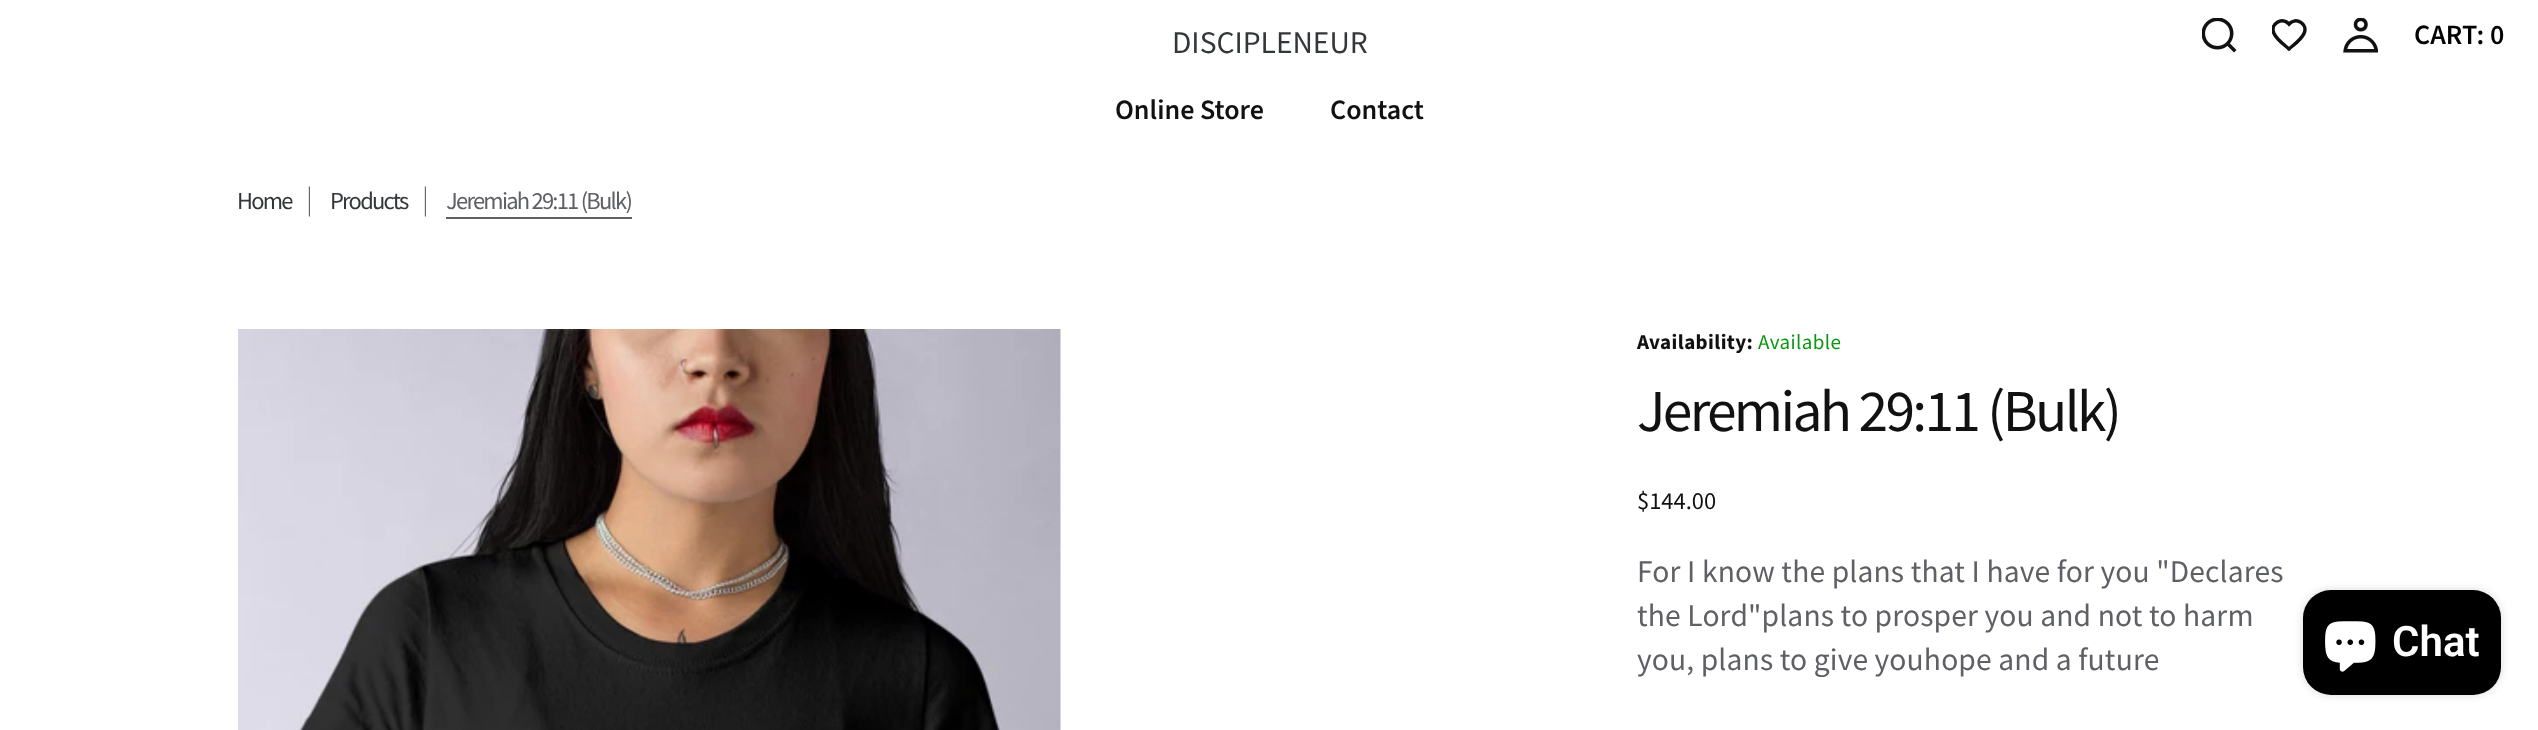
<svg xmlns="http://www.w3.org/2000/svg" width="2538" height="730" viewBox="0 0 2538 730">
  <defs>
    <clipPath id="clip1"><rect x="2272" y="18" width="35" height="35"/></clipPath>
    <filter id="blur1" x="-50%" y="-200%" width="200%" height="500%"><feGaussianBlur stdDeviation="4.5"/></filter>
  </defs>
  <rect width="100%" height="100%" fill="#ffffff"/>
  <text x="1172" y="53" font-family="Source Sans Pro" font-size="31.5" fill="#34373a">DISCIPLENEUR</text>
  <image x="2202" y="18" width="35" height="35" href="img1.png"/>
  <g clip-path="url(#clip1)">
    <path d="M2289 49C2284 44.5 2277 40 2274 33.5C2269.5 23.5 2282.5 16.5 2289 24C2295.5 16.5 2308.5 23.5 2304 33.5C2301 40 2294 44.5 2289 49Z" fill="none" stroke="#111111" stroke-width="3.5" stroke-linecap="round"/>
  </g>
  <image x="2343" y="18" width="35" height="35" href="img2.png"/>
  <text x="2414" y="44" font-family="Source Sans Pro" font-size="28" font-weight="600" fill="#000000">CART: 0</text>
  <text x="1115" y="119" font-family="Source Sans Pro" font-size="28" font-weight="600" fill="#111111">Online Store</text>
  <text x="1330" y="119" font-family="Source Sans Pro" font-size="28" font-weight="600" fill="#111111">Contact</text>
  <text x="237" y="209" font-family="Source Sans Pro" font-size="24.5" letter-spacing="-1.75" fill="#34373a">Home</text>
  <text x="306" y="209" font-family="Source Sans Pro" font-size="30" font-weight="300" fill="#5f6065">|</text>
  <text x="330" y="209" font-family="Source Sans Pro" font-size="24.5" letter-spacing="-1.75" fill="#34373a">Products</text>
  <text x="422" y="209" font-family="Source Sans Pro" font-size="30" font-weight="300" fill="#5f6065">|</text>
  <text x="446" y="209" font-family="Source Sans Pro" font-size="24.5" letter-spacing="-1.75" fill="#5f6065">Jeremiah 29:11 (Bulk)</text>
  <rect x="446" y="217" width="186" height="2" fill="#5f6065"/>
  <image x="238" y="329" width="823" height="401" href="img3.png"/>
  <text x="1637" y="349" font-family="Source Sans Pro" font-size="21" font-weight="bold" letter-spacing="0.4" fill="#111111">Availability:</text>
  <text x="1758" y="349" font-family="Source Sans Pro" font-size="21" letter-spacing="0.4" fill="#0c9712">Available</text>
  <text x="1637" y="431" font-family="Source Sans Pro" font-size="59.5" letter-spacing="-2.7" fill="#111111">Jeremiah 29:11 (Bulk)</text>
  <text x="1637" y="509" font-family="Source Sans Pro" font-size="24.5" fill="#111111">$144.00</text>
  <text x="1637" y="582" font-family="Source Sans Pro" font-size="31.5" letter-spacing="0.15" fill="#5f6065">For I know the plans that I have for you "Declares</text>
  <text x="1637" y="626" font-family="Source Sans Pro" font-size="31.5" letter-spacing="0.15" fill="#5f6065">the Lord"plans to prosper you and not to harm</text>
  <text x="1637" y="670" font-family="Source Sans Pro" font-size="31.5" letter-spacing="0.15" fill="#5f6065">you, plans to give youhope and a future</text>
  <rect x="2303" y="590" width="198" height="105" rx="28" fill="#000000" fill-opacity="0.15" filter="url(#blur1)"/>
  <rect x="2303" y="590" width="198" height="105" rx="28" fill="#000000"/>
  <image x="2325" y="621" width="51" height="51" href="img4.png"/>
  <text x="2392" y="656" font-family="Roboto" font-size="42" font-weight="600" fill="#ffffff">Chat</text>
</svg>
